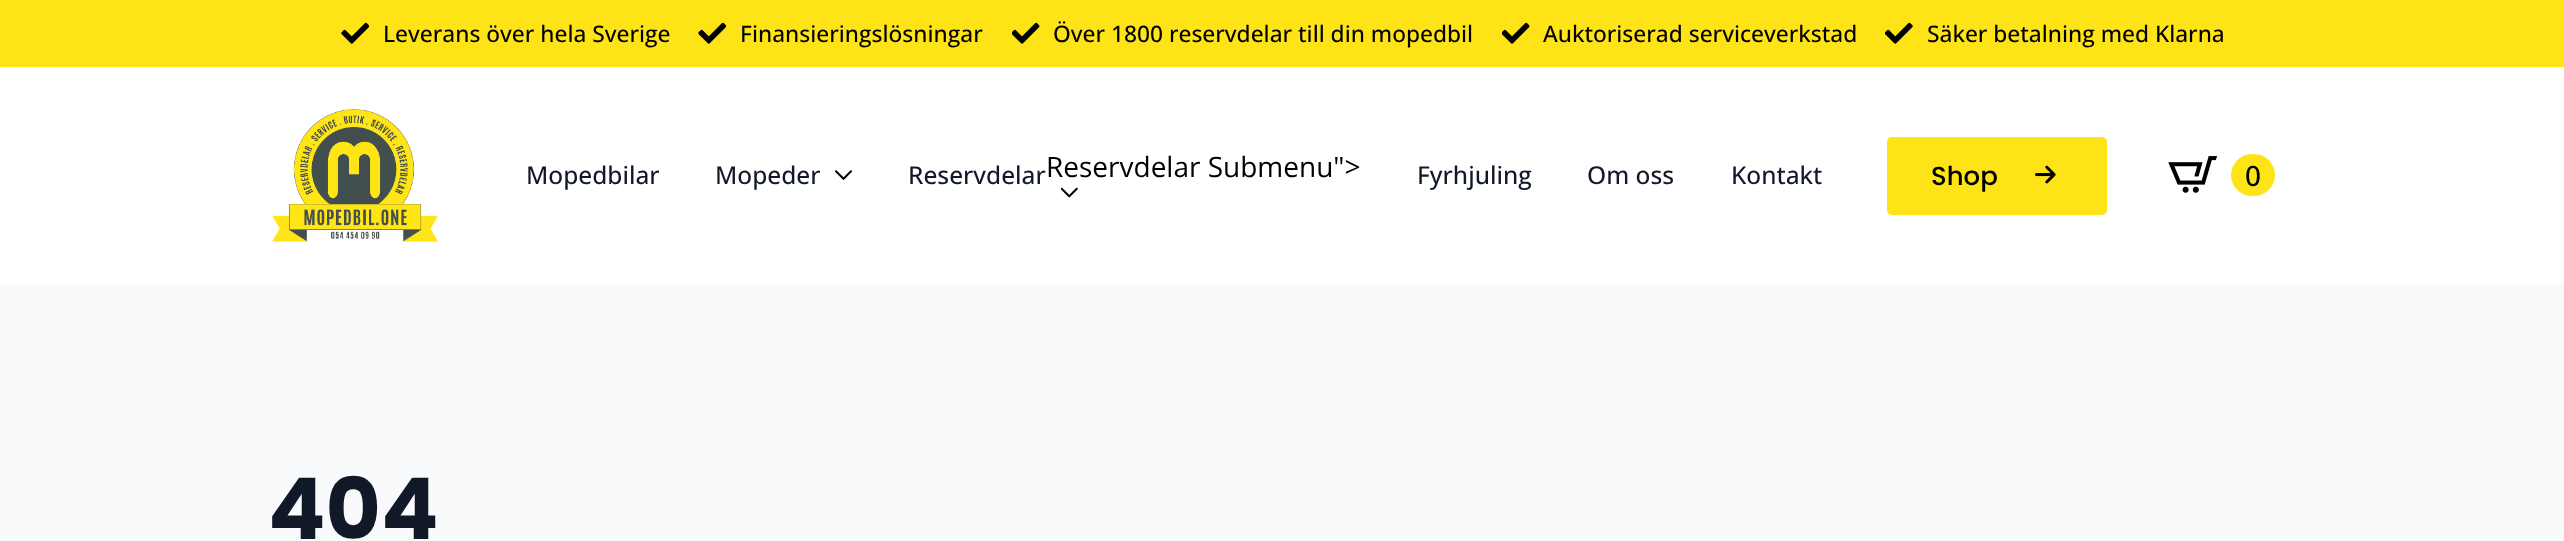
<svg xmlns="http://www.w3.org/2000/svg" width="2564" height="541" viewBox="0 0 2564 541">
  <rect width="100%" height="100%" fill="#f9fafb"/>
  <rect x="0" y="0" width="2564" height="67" fill="#fee416"/>
  <image x="341" y="22" width="28" height="22" href="img1.png"/>
  <text x="383" y="42" font-family="Open Sans" font-size="22.75" font-weight="500" fill="#000000">Leverans över hela Sverige</text>
  <image x="698" y="22" width="28" height="22" href="img1.png"/>
  <text x="740" y="42" font-family="Open Sans" font-size="22.75" font-weight="500" fill="#000000">Finansieringslösningar</text>
  <image x="1012" y="22" width="28" height="22" href="img2.png"/>
  <text x="1053" y="42" font-family="Open Sans" font-size="22.75" font-weight="500" fill="#000000">Över 1800 reservdelar till din mopedbil</text>
  <image x="1502" y="22" width="28" height="22" href="img2.png"/>
  <text x="1543" y="42" font-family="Open Sans" font-size="22.75" font-weight="500" fill="#000000">Auktoriserad serviceverkstad</text>
  <image x="1885" y="22" width="28" height="22" href="img3.png"/>
  <text x="1927" y="42" font-family="Open Sans" font-size="22.75" font-weight="500" fill="#000000">Säker betalning med Klarna</text>
  <rect x="0" y="67" width="2564" height="217" fill="#ffffff"/>
  <image x="272" y="109" width="167" height="133" href="img4.png"/>
  <text x="526" y="184" font-family="Open Sans" font-size="24.5" font-weight="500" fill="#111827">Mopedbilar</text>
  <text x="715" y="184" font-family="Open Sans" font-size="24.5" font-weight="500" fill="#111827">Mopeder</text>
  <image x="835" y="170" width="17" height="10" href="img5.png"/>
  <text x="908" y="184" font-family="Open Sans" font-size="24.5" font-weight="500" fill="#111827">Reservdelar</text>
  <text x="1046" y="177" font-family="Open Sans" font-size="28" fill="#000000">Reservdelar Submenu"&gt;</text>
  <image x="1061" y="187" width="17" height="11" href="img6.png"/>
  <text x="1417" y="184" font-family="Open Sans" font-size="24.5" font-weight="500" fill="#111827">Fyrhjuling</text>
  <text x="1587" y="184" font-family="Open Sans" font-size="24.5" font-weight="500" fill="#111827">Om oss</text>
  <text x="1731" y="184" font-family="Open Sans" font-size="24.5" font-weight="500" fill="#111827">Kontakt</text>
  <rect x="1887" y="137" width="220" height="78" rx="5" fill="#fee416"/>
  <text x="1931" y="185" font-family="Poppins" font-size="26" font-weight="500" fill="#000000">Shop</text>
  <image x="2035" y="165" width="21" height="19" href="img7.png"/>
  <image x="2168" y="156" width="49" height="37" href="img8.png"/>
  <rect x="2231" y="154" width="44" height="42" rx="21" fill="#fee416"/>
  <text x="2245" y="186" font-family="Open Sans" font-size="28" font-weight="500" fill="#000000">0</text>
  <text x="268" y="539" font-family="Poppins" font-size="85" font-weight="bold" fill="#111827">404</text>
</svg>
